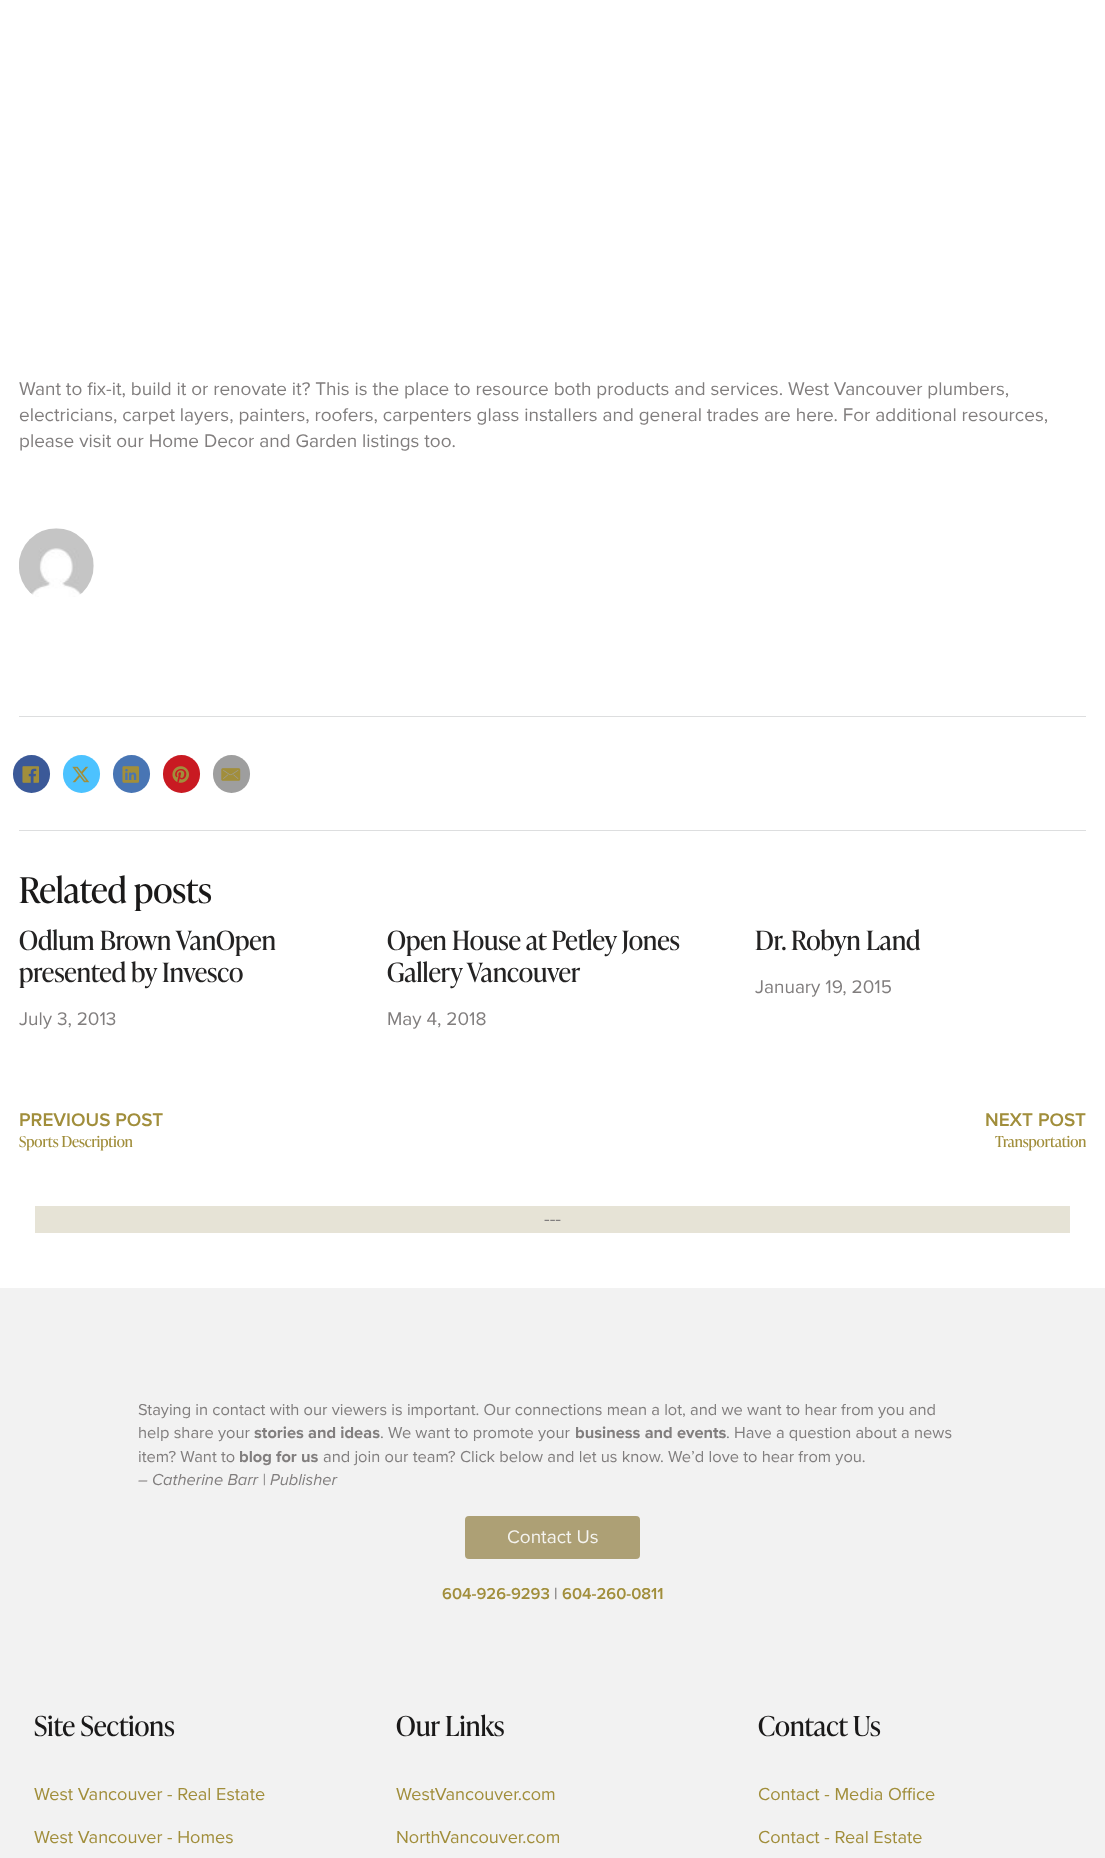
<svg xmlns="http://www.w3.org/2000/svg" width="1105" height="1858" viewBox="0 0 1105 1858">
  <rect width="100%" height="100%" fill="#ffffff"/>
  <text x="19" y="395" font-family="Proxima Nova" font-size="18.97" fill="#817e7e">Want to fix-it, build it or renovate it? This is the place to resource both products and services. West Vancouver plumbers,</text>
  <text x="19" y="421" font-family="Proxima Nova" font-size="18.97" fill="#817e7e">electricians, carpet layers, painters, roofers, carpenters glass installers and general trades are here. For additional resources,</text>
  <text x="19" y="447" font-family="Proxima Nova" font-size="18.97" fill="#817e7e">please visit our Home Decor and Garden listings too.</text>
  <image x="19" y="528" width="75" height="69" href="img1.png"/>
  <rect x="19" y="716" width="1067" height="1" fill="#dddedf"/>
  <rect x="19" y="830" width="1067" height="1" fill="#dddedf"/>
  <rect x="13" y="755" width="37" height="38" rx="18.5" fill="#3b5998"/>
  <image x="22" y="766" width="17" height="17" href="img2.png"/>
  <rect x="63" y="755" width="37" height="38" rx="18.5" fill="#4cc2ff"/>
  <image x="72" y="766" width="18" height="17" href="img3.png"/>
  <rect x="113" y="755" width="37" height="38" rx="18.5" fill="#4875b4"/>
  <image x="122" y="766" width="17" height="17" href="img4.png"/>
  <rect x="163" y="755" width="37" height="38" rx="18.5" fill="#c91a22"/>
  <image x="172" y="766" width="17" height="17" href="img5.png"/>
  <rect x="213" y="755" width="37" height="38" rx="18.5" fill="#9e9e9e"/>
  <image x="221" y="768" width="20" height="13" href="img6.png"/>
  <text x="19" y="903" font-family="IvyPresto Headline" font-size="35.5" fill="#1a1919">Related posts</text>
  <text x="19" y="950" font-family="IvyPresto Headline" font-size="26.5" fill="#242323">Odlum Brown VanOpen</text>
  <text x="19" y="982" font-family="IvyPresto Headline" font-size="26.5" fill="#242323">presented by Invesco</text>
  <text x="19" y="1025" font-family="Proxima Nova" font-size="18.97" fill="#817e7e">July 3, 2013</text>
  <text x="387" y="950" font-family="IvyPresto Headline" font-size="26.5" fill="#242323">Open House at Petley Jones</text>
  <text x="387" y="982" font-family="IvyPresto Headline" font-size="26.5" fill="#242323">Gallery Vancouver</text>
  <text x="387" y="1025" font-family="Proxima Nova" font-size="18.97" fill="#817e7e">May 4, 2018</text>
  <text x="755" y="950" font-family="IvyPresto Headline" font-size="26.5" fill="#242323">Dr. Robyn Land</text>
  <text x="755" y="993" font-family="Proxima Nova" font-size="18.97" fill="#817e7e">January 19, 2015</text>
  <text x="19" y="1126" font-family="Proxima Nova" font-size="18.97" font-weight="600" fill="#a18e3b">PREVIOUS POST</text>
  <text x="19" y="1147" font-family="IvyPresto Headline" font-size="15" fill="#a18e3b">Sports Description</text>
  <text x="985" y="1126" font-family="Proxima Nova" font-size="18.97" font-weight="600" fill="#a18e3b">NEXT POST</text>
  <text x="995" y="1147" font-family="IvyPresto Headline" font-size="15" fill="#a18e3b">Transportation</text>
  <rect x="35" y="1206" width="1035" height="27" fill="#e6e3d6"/>
  <text x="544" y="1225" font-family="Proxima Nova" font-size="18.97" fill="#817e7e">---</text>
  <rect x="0" y="1288" width="1105" height="570" fill="#f2f2f2"/>
  <text x="138" y="1415" font-family="Proxima Nova" font-size="16.45" fill="#817e7e">Staying in contact with our viewers is important. Our connections mean a lot, and we want to hear from you and</text>
  <text x="138" y="1438" font-family="Proxima Nova" font-size="16.45" fill="#817e7e">help share your</text>
  <text x="254" y="1438" font-family="Proxima Nova" font-size="16.45" font-weight="bold" fill="#817e7e">stories and ideas</text>
  <text x="380" y="1438" font-family="Proxima Nova" font-size="16.45" fill="#817e7e">. We want to promote your</text>
  <text x="575" y="1438" font-family="Proxima Nova" font-size="16.45" font-weight="bold" fill="#817e7e">business and events</text>
  <text x="726" y="1438" font-family="Proxima Nova" font-size="16.45" fill="#817e7e">. Have a question about a news</text>
  <text x="138" y="1462" font-family="Proxima Nova" font-size="16.45" fill="#817e7e">item? Want to</text>
  <text x="239" y="1462" font-family="Proxima Nova" font-size="16.45" font-weight="bold" fill="#817e7e">blog for us</text>
  <text x="323" y="1462" font-family="Proxima Nova" font-size="16.45" fill="#817e7e">and join our team? Click below and let us know. We’d love to hear from you.</text>
  <text x="138" y="1485" font-family="Proxima Nova" font-size="16.45" font-style="italic" fill="#817e7e">– Catherine Barr | Publisher</text>
  <rect x="466.5" y="1517.5" width="172" height="40" rx="2.5" fill="#ada075" stroke="#ada075" stroke-width="3"/>
  <text x="507" y="1543" font-family="Proxima Nova" font-size="18.97" fill="#f5f4f0">Contact Us</text>
  <text x="442" y="1599" font-family="Proxima Nova" font-size="16.45" font-weight="600" fill="#a18e3b">604-926-9293</text>
  <text x="554" y="1599" font-family="Proxima Nova" font-size="16.45" font-weight="600" fill="#817e7e">|</text>
  <text x="562" y="1599" font-family="Proxima Nova" font-size="16.45" font-weight="600" fill="#a18e3b">604-260-0811</text>
  <text x="34" y="1736" font-family="IvyPresto Headline" font-size="27.5" fill="#1a1919">Site Sections</text>
  <text x="34" y="1800" font-family="Proxima Nova" font-size="18.1" fill="#a18e3b">West Vancouver - Real Estate</text>
  <text x="34" y="1843" font-family="Proxima Nova" font-size="18.1" fill="#a18e3b">West Vancouver - Homes</text>
  <text x="396" y="1736" font-family="IvyPresto Headline" font-size="27.5" fill="#1a1919">Our Links</text>
  <text x="396" y="1800" font-family="Proxima Nova" font-size="18.1" fill="#a18e3b">WestVancouver.com</text>
  <text x="396" y="1843" font-family="Proxima Nova" font-size="18.1" fill="#a18e3b">NorthVancouver.com</text>
  <text x="758" y="1736" font-family="IvyPresto Headline" font-size="27.5" fill="#1a1919">Contact Us</text>
  <text x="758" y="1800" font-family="Proxima Nova" font-size="18.1" fill="#a18e3b">Contact - Media Office</text>
  <text x="758" y="1843" font-family="Proxima Nova" font-size="18.1" fill="#a18e3b">Contact - Real Estate</text>
</svg>
